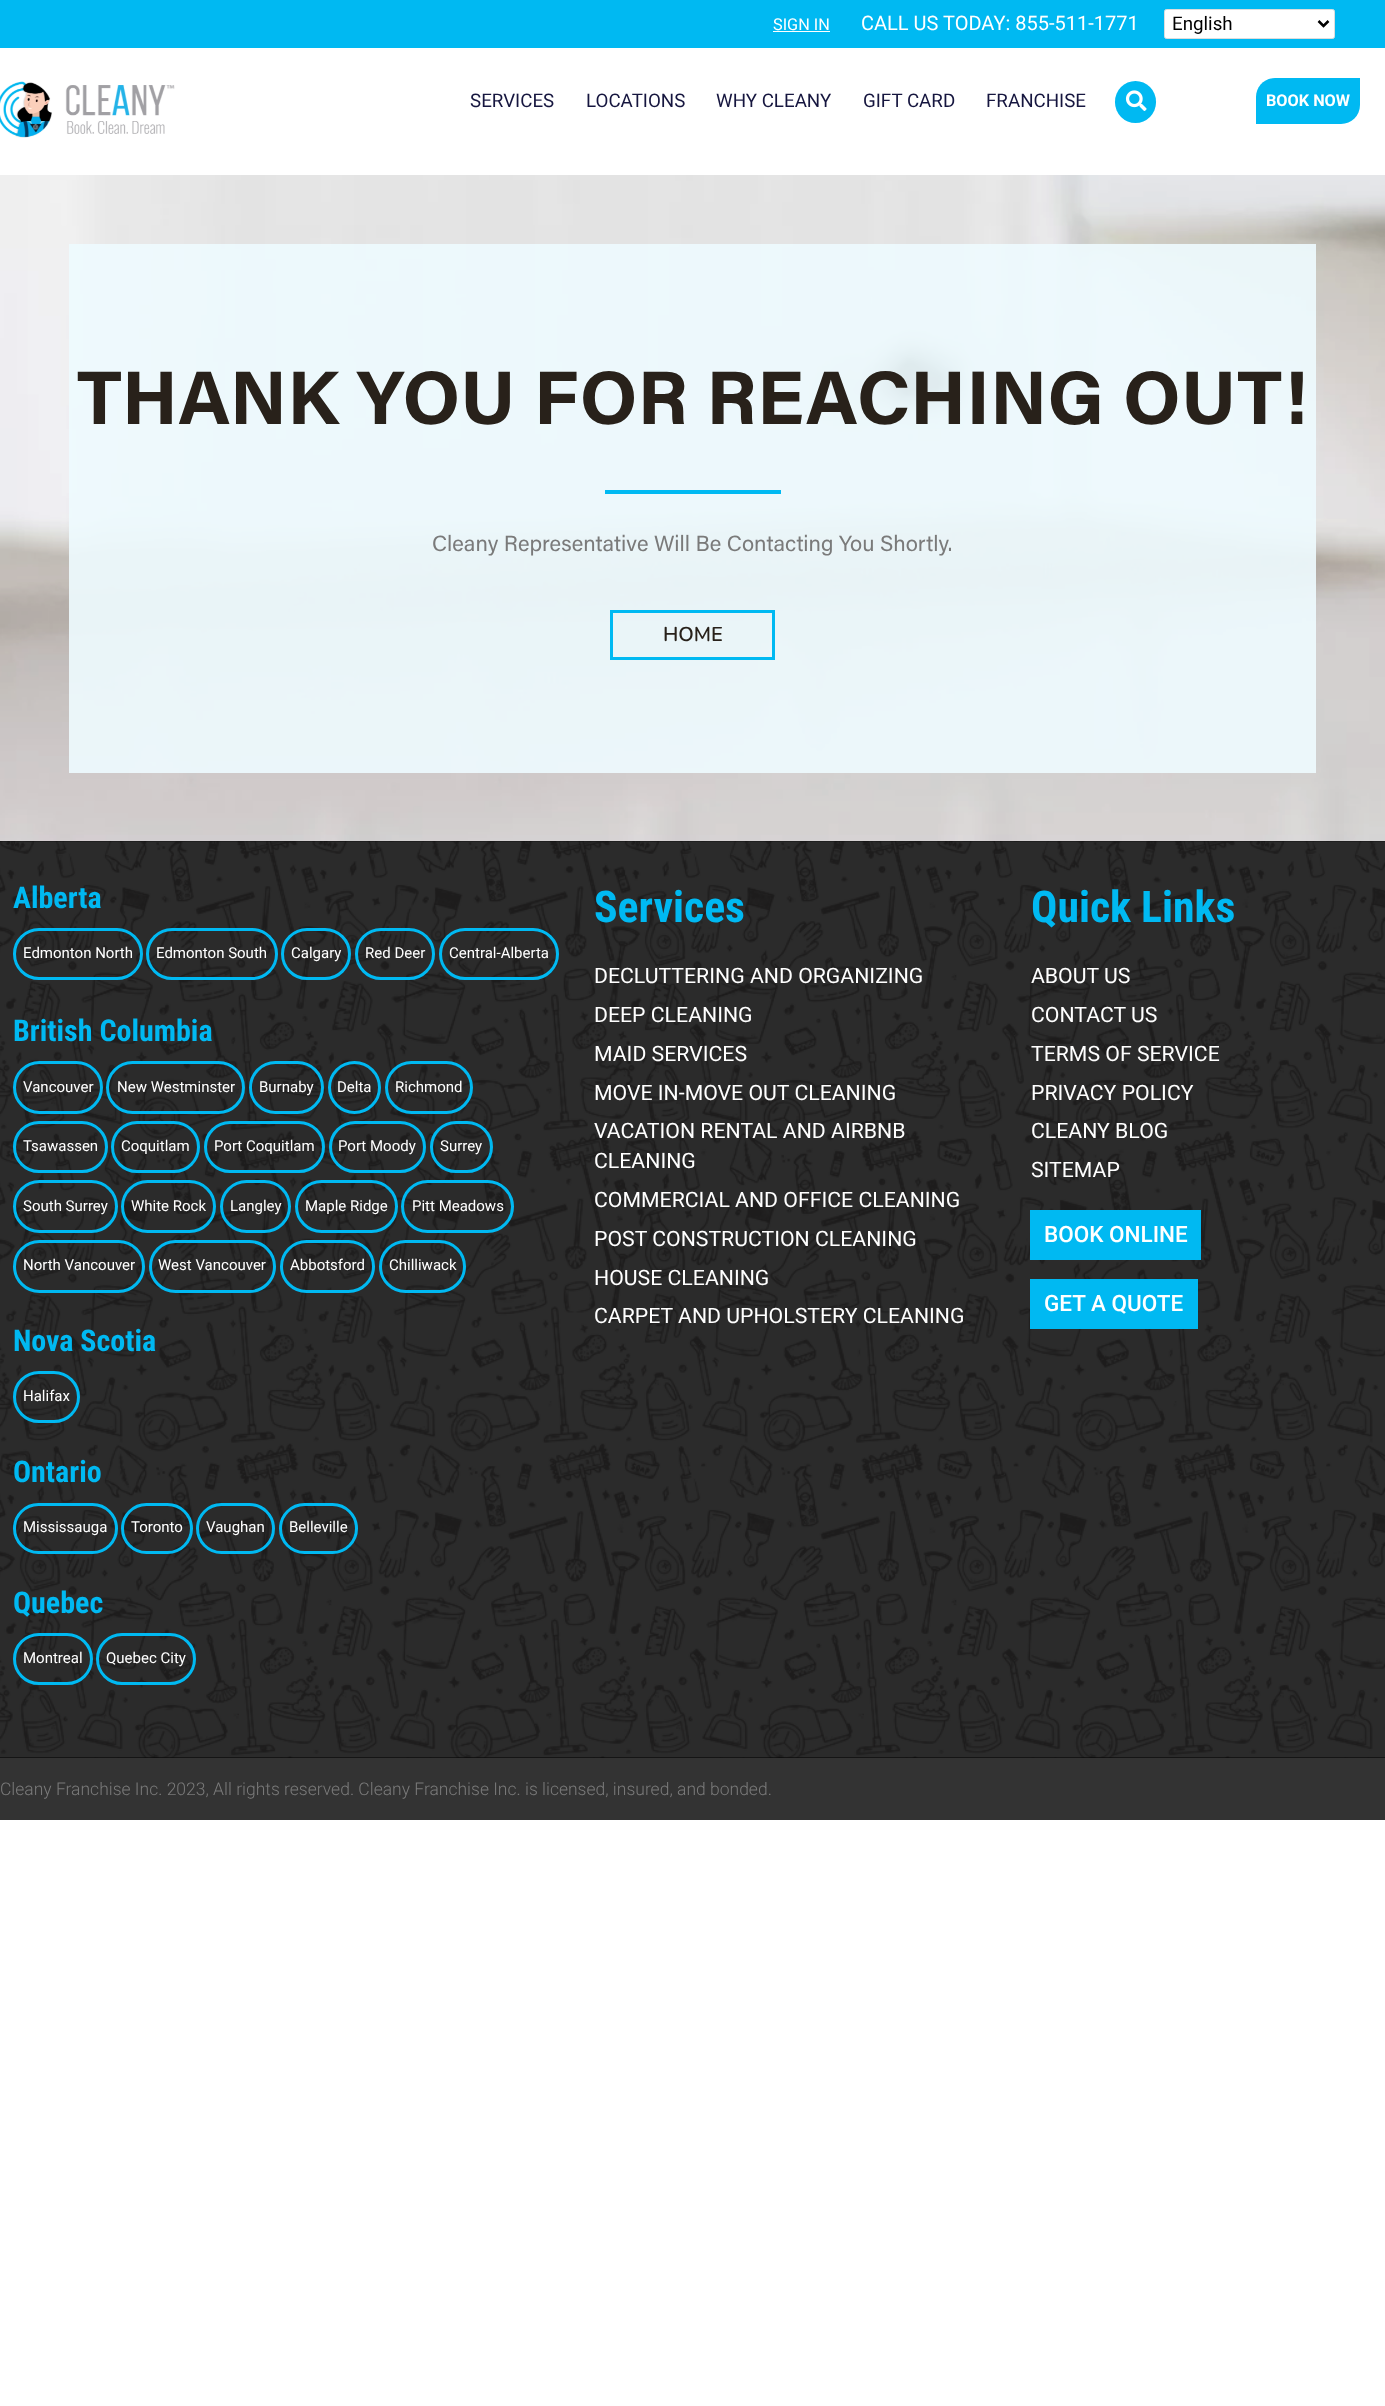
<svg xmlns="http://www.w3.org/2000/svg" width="1385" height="2406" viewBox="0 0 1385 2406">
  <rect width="100%" height="100%" fill="#ffffff"/>
  <rect x="0" y="0" width="1385" height="48" fill="#00b9f2"/>
  <text x="773" y="30" font-family="Roboto" font-size="16.25" fill="#ffffff">SIGN IN</text>
  <rect x="773" y="31" width="57" height="1" fill="#ffffff"/>
  <text x="861" y="30" font-family="Roboto" font-size="20" fill="#ffffff">CALL US TODAY: 855-511-1771</text>
  <rect x="1164.5" y="9.5" width="170" height="29" rx="2" fill="#ffffff" stroke="#dddddd"/>
  <path d="M1318.5 21L1323.5 26L1328.5 21" fill="none" stroke="#000000" stroke-width="2.5"/>
  <text x="1172" y="30" font-family="Roboto" font-size="18.75" fill="#000000">English</text>
  <image x="0" y="81" width="175" height="57" href="img1.png"/>
  <text x="470" y="107" font-family="Roboto" font-size="18.75" fill="#16163f">SERVICES</text>
  <text x="586" y="107" font-family="Roboto" font-size="18.75" fill="#16163f">LOCATIONS</text>
  <text x="716" y="107" font-family="Roboto" font-size="18.75" fill="#16163f">WHY CLEANY</text>
  <text x="863" y="107" font-family="Roboto" font-size="18.75" fill="#16163f">GIFT CARD</text>
  <text x="986" y="107" font-family="Roboto" font-size="18.75" fill="#16163f">FRANCHISE</text>
  <rect x="1115" y="81" width="41" height="42" rx="20.5" fill="#00b9f2"/>
  <image x="1125" y="90" width="22" height="21" href="img2.png"/>
  <path d="M1275 78H1360V105C1360 115.5 1351.5 124 1341 124H1256V97C1256 86.5 1264.5 78 1275 78Z" fill="#00b9f2"/>
  <text x="1266" y="106" font-family="Roboto" font-size="16.25" font-weight="bold" fill="#ffffff">BOOK NOW</text>
  <image x="0" y="175" width="1385" height="666" href="img3.png"/>
  <rect x="69" y="244" width="1247" height="529" fill="#00b9f2" fill-opacity="0.4"/>
  <rect x="69" y="244" width="1247" height="529" fill="#ffffff" fill-opacity="0.85"/>
  <text x="77" y="424" font-family="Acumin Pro" font-size="76" font-weight="bold" fill="#28211a">THANK YOU FOR REACHING OUT!</text>
  <rect x="605" y="490" width="176" height="4" fill="#00b9f2"/>
  <text x="432" y="551" font-family="Acumin Pro" font-size="22" fill="#7a7a7a">Cleany Representative Will Be Contacting You Shortly.</text>
  <rect x="611.5" y="611.5" width="162" height="47" fill="none" stroke="#00b9f2" stroke-width="3"/>
  <text x="663" y="641" font-family="Nunito" font-size="20" font-weight="600" fill="#28211a">HOME</text>
  <rect x="0" y="841" width="1385" height="917" fill="#000000"/>
  <image x="0" y="841" width="1385" height="917" href="img4.png"/>
  <text x="13" y="908" font-family="Roboto Condensed" font-size="30" font-weight="bold" fill="#00b9f2">Alberta</text>
  <rect x="14.5" y="929.5" width="127" height="49" rx="24.5" fill="none" stroke="#00b9f2" stroke-width="3"/>
  <text x="23" y="958" font-family="Roboto" font-size="15" fill="#ffffff">Edmonton North</text>
  <rect x="147.5" y="929.5" width="129" height="49" rx="24.5" fill="none" stroke="#00b9f2" stroke-width="3"/>
  <text x="156" y="958" font-family="Roboto" font-size="15" fill="#ffffff">Edmonton South</text>
  <rect x="282.5" y="929.5" width="67" height="49" rx="24.5" fill="none" stroke="#00b9f2" stroke-width="3"/>
  <text x="291" y="958" font-family="Roboto" font-size="15" fill="#ffffff">Calgary</text>
  <rect x="356.5" y="929.5" width="77" height="49" rx="24.5" fill="none" stroke="#00b9f2" stroke-width="3"/>
  <text x="365" y="958" font-family="Roboto" font-size="15" fill="#ffffff">Red Deer</text>
  <rect x="440.5" y="929.5" width="117" height="49" rx="24.5" fill="none" stroke="#00b9f2" stroke-width="3"/>
  <text x="449" y="958" font-family="Roboto" font-size="15" fill="#ffffff">Central-Alberta</text>
  <text x="13" y="1041" font-family="Roboto Condensed" font-size="30" font-weight="bold" fill="#00b9f2">British Columbia</text>
  <rect x="14.5" y="1062.5" width="87" height="50" rx="25" fill="none" stroke="#00b9f2" stroke-width="3"/>
  <text x="23" y="1092" font-family="Roboto" font-size="15" fill="#ffffff">Vancouver</text>
  <rect x="107.5" y="1062.5" width="136" height="50" rx="25" fill="none" stroke="#00b9f2" stroke-width="3"/>
  <text x="117" y="1092" font-family="Roboto" font-size="15" fill="#ffffff">New Westminster</text>
  <rect x="250.5" y="1062.5" width="72" height="50" rx="25" fill="none" stroke="#00b9f2" stroke-width="3"/>
  <text x="259" y="1092" font-family="Roboto" font-size="15" fill="#ffffff">Burnaby</text>
  <circle cx="354.5" cy="1087.5" r="25" fill="none" stroke="#00b9f2" stroke-width="3"/>
  <text x="337" y="1092" font-family="Roboto" font-size="15" fill="#ffffff">Delta</text>
  <rect x="386.5" y="1062.5" width="85" height="50" rx="25" fill="none" stroke="#00b9f2" stroke-width="3"/>
  <text x="395" y="1092" font-family="Roboto" font-size="15" fill="#ffffff">Richmond</text>
  <rect x="14.5" y="1122.5" width="92" height="49" rx="24.5" fill="none" stroke="#00b9f2" stroke-width="3"/>
  <text x="23" y="1151" font-family="Roboto" font-size="15" fill="#ffffff">Tsawassen</text>
  <rect x="112.5" y="1122.5" width="86" height="49" rx="24.5" fill="none" stroke="#00b9f2" stroke-width="3"/>
  <text x="121" y="1151" font-family="Roboto" font-size="15" fill="#ffffff">Coquitlam</text>
  <rect x="205.5" y="1122.5" width="118" height="49" rx="24.5" fill="none" stroke="#00b9f2" stroke-width="3"/>
  <text x="214" y="1151" font-family="Roboto" font-size="15" fill="#ffffff">Port Coquitlam</text>
  <rect x="330.5" y="1122.5" width="94" height="49" rx="24.5" fill="none" stroke="#00b9f2" stroke-width="3"/>
  <text x="338" y="1151" font-family="Roboto" font-size="15" fill="#ffffff">Port Moody</text>
  <rect x="431.5" y="1122.5" width="60" height="49" rx="24.5" fill="none" stroke="#00b9f2" stroke-width="3"/>
  <text x="440" y="1151" font-family="Roboto" font-size="15" fill="#ffffff">Surrey</text>
  <rect x="14.5" y="1181.5" width="102" height="50" rx="25" fill="none" stroke="#00b9f2" stroke-width="3"/>
  <text x="23" y="1211" font-family="Roboto" font-size="15" fill="#ffffff">South Surrey</text>
  <rect x="122.5" y="1181.5" width="92" height="50" rx="25" fill="none" stroke="#00b9f2" stroke-width="3"/>
  <text x="131" y="1211" font-family="Roboto" font-size="15" fill="#ffffff">White Rock</text>
  <rect x="221.5" y="1181.5" width="68" height="50" rx="25" fill="none" stroke="#00b9f2" stroke-width="3"/>
  <text x="230" y="1211" font-family="Roboto" font-size="15" fill="#ffffff">Langley</text>
  <rect x="296.5" y="1181.5" width="100" height="50" rx="25" fill="none" stroke="#00b9f2" stroke-width="3"/>
  <text x="305" y="1211" font-family="Roboto" font-size="15" fill="#ffffff">Maple Ridge</text>
  <rect x="402.5" y="1181.5" width="110" height="50" rx="25" fill="none" stroke="#00b9f2" stroke-width="3"/>
  <text x="412" y="1211" font-family="Roboto" font-size="15" fill="#ffffff">Pitt Meadows</text>
  <rect x="14.5" y="1241.5" width="129" height="50" rx="25" fill="none" stroke="#00b9f2" stroke-width="3"/>
  <text x="23" y="1270" font-family="Roboto" font-size="15" fill="#ffffff">North Vancouver</text>
  <rect x="150.5" y="1241.5" width="124" height="50" rx="25" fill="none" stroke="#00b9f2" stroke-width="3"/>
  <text x="158" y="1270" font-family="Roboto" font-size="15" fill="#ffffff">West Vancouver</text>
  <rect x="281.5" y="1241.5" width="92" height="50" rx="25" fill="none" stroke="#00b9f2" stroke-width="3"/>
  <text x="290" y="1270" font-family="Roboto" font-size="15" fill="#ffffff">Abbotsford</text>
  <rect x="380.5" y="1241.5" width="84" height="50" rx="25" fill="none" stroke="#00b9f2" stroke-width="3"/>
  <text x="389" y="1270" font-family="Roboto" font-size="15" fill="#ffffff">Chilliwack</text>
  <text x="13" y="1351" font-family="Roboto Condensed" font-size="30" font-weight="bold" fill="#00b9f2">Nova Scotia</text>
  <rect x="14.5" y="1372.5" width="64" height="49" rx="24.5" fill="none" stroke="#00b9f2" stroke-width="3"/>
  <text x="23" y="1401" font-family="Roboto" font-size="15" fill="#ffffff">Halifax</text>
  <text x="13" y="1482" font-family="Roboto Condensed" font-size="30" font-weight="bold" fill="#00b9f2">Ontario</text>
  <rect x="14.5" y="1504.5" width="102" height="48" rx="24" fill="none" stroke="#00b9f2" stroke-width="3"/>
  <text x="23" y="1532" font-family="Roboto" font-size="15" fill="#ffffff">Mississauga</text>
  <rect x="122.5" y="1504.5" width="69" height="48" rx="24" fill="none" stroke="#00b9f2" stroke-width="3"/>
  <text x="131" y="1532" font-family="Roboto" font-size="15" fill="#ffffff">Toronto</text>
  <rect x="197.5" y="1504.5" width="76" height="48" rx="24" fill="none" stroke="#00b9f2" stroke-width="3"/>
  <text x="206" y="1532" font-family="Roboto" font-size="15" fill="#ffffff">Vaughan</text>
  <rect x="280.5" y="1504.5" width="76" height="48" rx="24" fill="none" stroke="#00b9f2" stroke-width="3"/>
  <text x="289" y="1532" font-family="Roboto" font-size="15" fill="#ffffff">Belleville</text>
  <text x="13" y="1613" font-family="Roboto Condensed" font-size="30" font-weight="bold" fill="#00b9f2">Quebec</text>
  <rect x="14.5" y="1634.5" width="77" height="49" rx="24.5" fill="none" stroke="#00b9f2" stroke-width="3"/>
  <text x="23" y="1663" font-family="Roboto" font-size="15" fill="#ffffff">Montreal</text>
  <rect x="97.5" y="1634.5" width="97" height="49" rx="24.5" fill="none" stroke="#00b9f2" stroke-width="3"/>
  <text x="106" y="1663" font-family="Roboto" font-size="15" fill="#ffffff">Quebec City</text>
  <text x="594" y="922" font-family="Roboto Condensed" font-size="43.75" font-weight="bold" fill="#00b9f2">Services</text>
  <text x="594" y="983" font-family="Roboto" font-size="21.25" fill="#ffffff">DECLUTTERING AND ORGANIZING</text>
  <text x="594" y="1022" font-family="Roboto" font-size="21.25" fill="#ffffff">DEEP CLEANING</text>
  <text x="594" y="1061" font-family="Roboto" font-size="21.25" fill="#ffffff">MAID SERVICES</text>
  <text x="594" y="1100" font-family="Roboto" font-size="21.25" fill="#ffffff">MOVE IN-MOVE OUT CLEANING</text>
  <text x="594" y="1138" font-family="Roboto" font-size="21.25" fill="#ffffff">VACATION RENTAL AND AIRBNB</text>
  <text x="594" y="1168" font-family="Roboto" font-size="21.25" fill="#ffffff">CLEANING</text>
  <text x="594" y="1207" font-family="Roboto" font-size="21.25" fill="#ffffff">COMMERCIAL AND OFFICE CLEANING</text>
  <text x="594" y="1246" font-family="Roboto" font-size="21.25" fill="#ffffff">POST CONSTRUCTION CLEANING</text>
  <text x="594" y="1285" font-family="Roboto" font-size="21.25" fill="#ffffff">HOUSE CLEANING</text>
  <text x="594" y="1323" font-family="Roboto" font-size="21.25" fill="#ffffff">CARPET AND UPHOLSTERY CLEANING</text>
  <text x="1031" y="922" font-family="Roboto Condensed" font-size="43.75" font-weight="bold" fill="#00b9f2">Quick Links</text>
  <text x="1031" y="983" font-family="Roboto" font-size="21.25" fill="#ffffff">ABOUT US</text>
  <text x="1031" y="1022" font-family="Roboto" font-size="21.25" fill="#ffffff">CONTACT US</text>
  <text x="1031" y="1061" font-family="Roboto" font-size="21.25" fill="#ffffff">TERMS OF SERVICE</text>
  <text x="1031" y="1100" font-family="Roboto" font-size="21.25" fill="#ffffff">PRIVACY POLICY</text>
  <text x="1031" y="1138" font-family="Roboto" font-size="21.25" fill="#ffffff">CLEANY BLOG</text>
  <text x="1031" y="1177" font-family="Roboto" font-size="21.25" fill="#ffffff">SITEMAP</text>
  <rect x="1030" y="1210" width="171" height="50" fill="#00b9f2"/>
  <text x="1044" y="1242" font-family="Roboto" font-size="22.5" font-weight="500" fill="#ffffff">BOOK ONLINE</text>
  <rect x="1030" y="1279" width="168" height="50" fill="#00b9f2"/>
  <text x="1044" y="1311" font-family="Roboto" font-size="22.5" font-weight="500" fill="#ffffff">GET A QUOTE</text>
  <rect x="0" y="1758" width="1385" height="62" fill="#333333"/>
  <text x="0" y="1795" font-family="Roboto" font-size="17.5" font-weight="300" fill="#7a7a7a">Cleany Franchise Inc. 2023, All rights reserved. Cleany Franchise Inc. is licensed, insured, and bonded.</text>
</svg>
